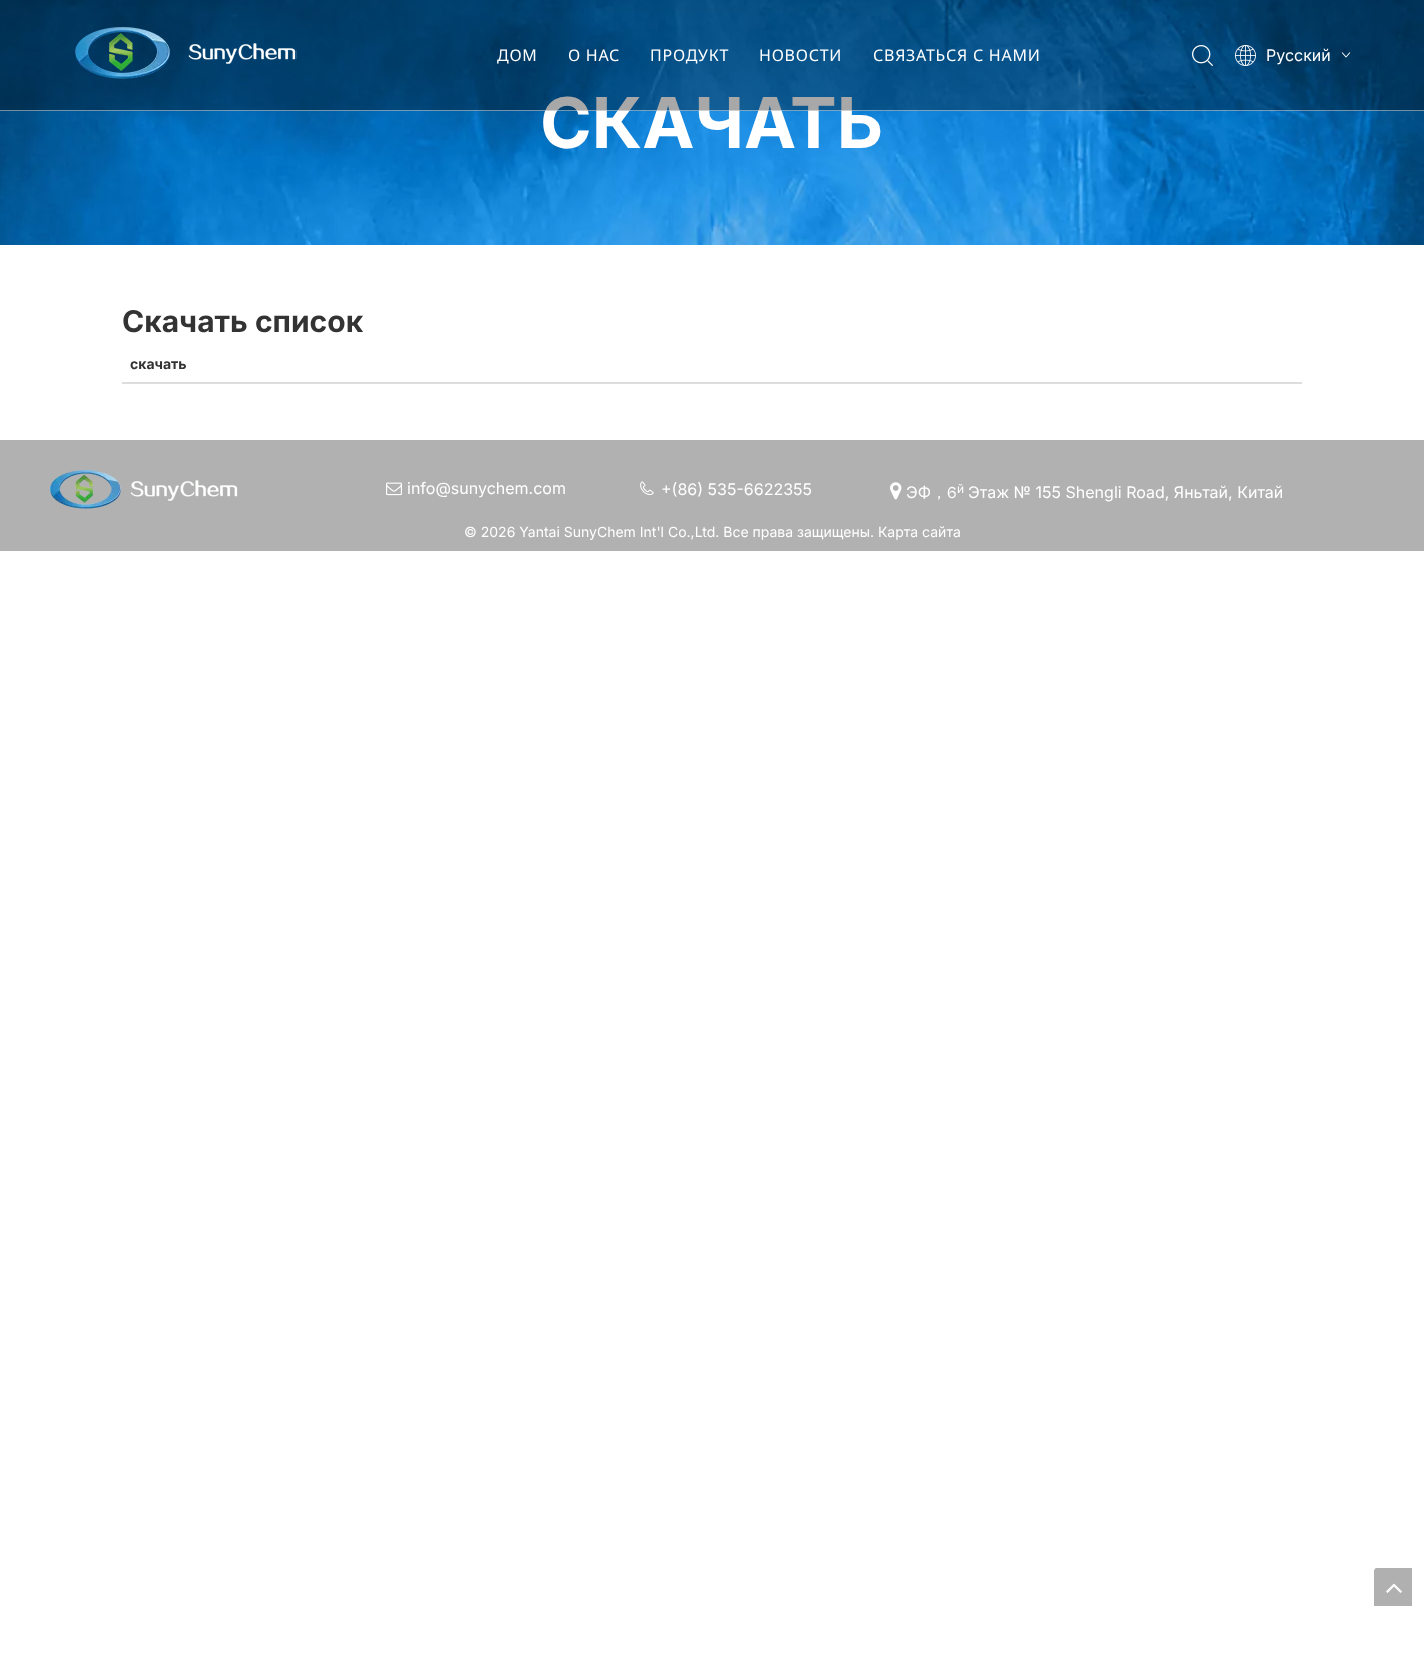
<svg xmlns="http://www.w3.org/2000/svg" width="1424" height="1662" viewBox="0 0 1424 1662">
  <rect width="100%" height="100%" fill="#ffffff"/>
  <image x="0" y="0" width="1424" height="245" href="img5.png"/>
  <text x="540" y="148" font-family="Inter" font-size="70" font-weight="bold" fill="#ffffff">СКАЧАТЬ</text>
  <rect x="0" y="0" width="1424" height="111" fill="#000000" fill-opacity="0.34"/>
  <rect x="0" y="110" width="1424" height="1" fill="#ffffff" fill-opacity="0.45"/>
  <image x="75" y="27" width="222" height="52" href="img1.png"/>
  <text x="497" y="61" font-family="Noto Sans" font-size="16" letter-spacing="0.75" fill="#ffffff">ДОМ</text>
  <text x="568" y="61" font-family="Noto Sans" font-size="16" letter-spacing="0.75" fill="#ffffff">О НАС</text>
  <text x="650" y="61" font-family="Noto Sans" font-size="16" letter-spacing="0.75" fill="#ffffff">ПРОДУКТ</text>
  <text x="759" y="61" font-family="Noto Sans" font-size="16" letter-spacing="0.75" fill="#ffffff">НОВОСТИ</text>
  <text x="873" y="61" font-family="Noto Sans" font-size="16" letter-spacing="0.75" fill="#ffffff">СВЯЗАТЬСЯ С НАМИ</text>
  <image x="1192" y="45" width="21" height="21" href="img2.png"/>
  <image x="1235" y="45" width="21" height="21" href="img3.png"/>
  <text x="1266" y="61" font-family="Inter" font-size="16" fill="#ffffff">Pусский</text>
  <image x="1341" y="52" width="10" height="6" href="img4.png"/>
  <text x="122" y="332" font-family="Inter" font-size="30" font-weight="bold" fill="#333333">Скачать список</text>
  <rect x="122" y="382" width="1180" height="2" fill="#dddddd"/>
  <text x="130" y="369" font-family="Inter" font-size="14" font-weight="bold" fill="#333333">скачать</text>
  <rect x="0" y="440" width="1424" height="111" fill="#b1b1b1"/>
  <image x="50" y="470" width="188" height="39" href="img6.png"/>
  <image x="386" y="482" width="16" height="14" href="img7.png"/>
  <text x="407" y="494" font-family="Inter" font-size="16" fill="#ffffff">info@sunychem.com</text>
  <image x="640" y="481" width="14" height="14" href="img8.png"/>
  <text x="661" y="495" font-family="Inter" font-size="16" fill="#ffffff">+(86) 535-6622355</text>
  <image x="890" y="482" width="12" height="18" href="img9.png"/>
  <text x="906" y="498" font-family="Inter" font-size="16" fill="#ffffff">ЭФ</text>
  <text x="931" y="498" font-family="WenQuanYi Zen Hei" font-size="16" font-weight="500" fill="#ffffff">，6</text>
  <text x="957" y="493" font-family="Inter" font-size="12" fill="#ffffff">й</text>
  <text x="968" y="498" font-family="Inter" font-size="16" fill="#ffffff">Этаж № 155 Shengli Road, Яньтай, Китай</text>
  <text x="464" y="537" font-family="Inter" font-size="14" fill="#ffffff">© 2026 Yantai SunyChem Int'l Co.,Ltd. Все права защищены. Карта сайта</text>
  <image x="1374" y="1568" width="38" height="38" href="img10.png"/>
</svg>
